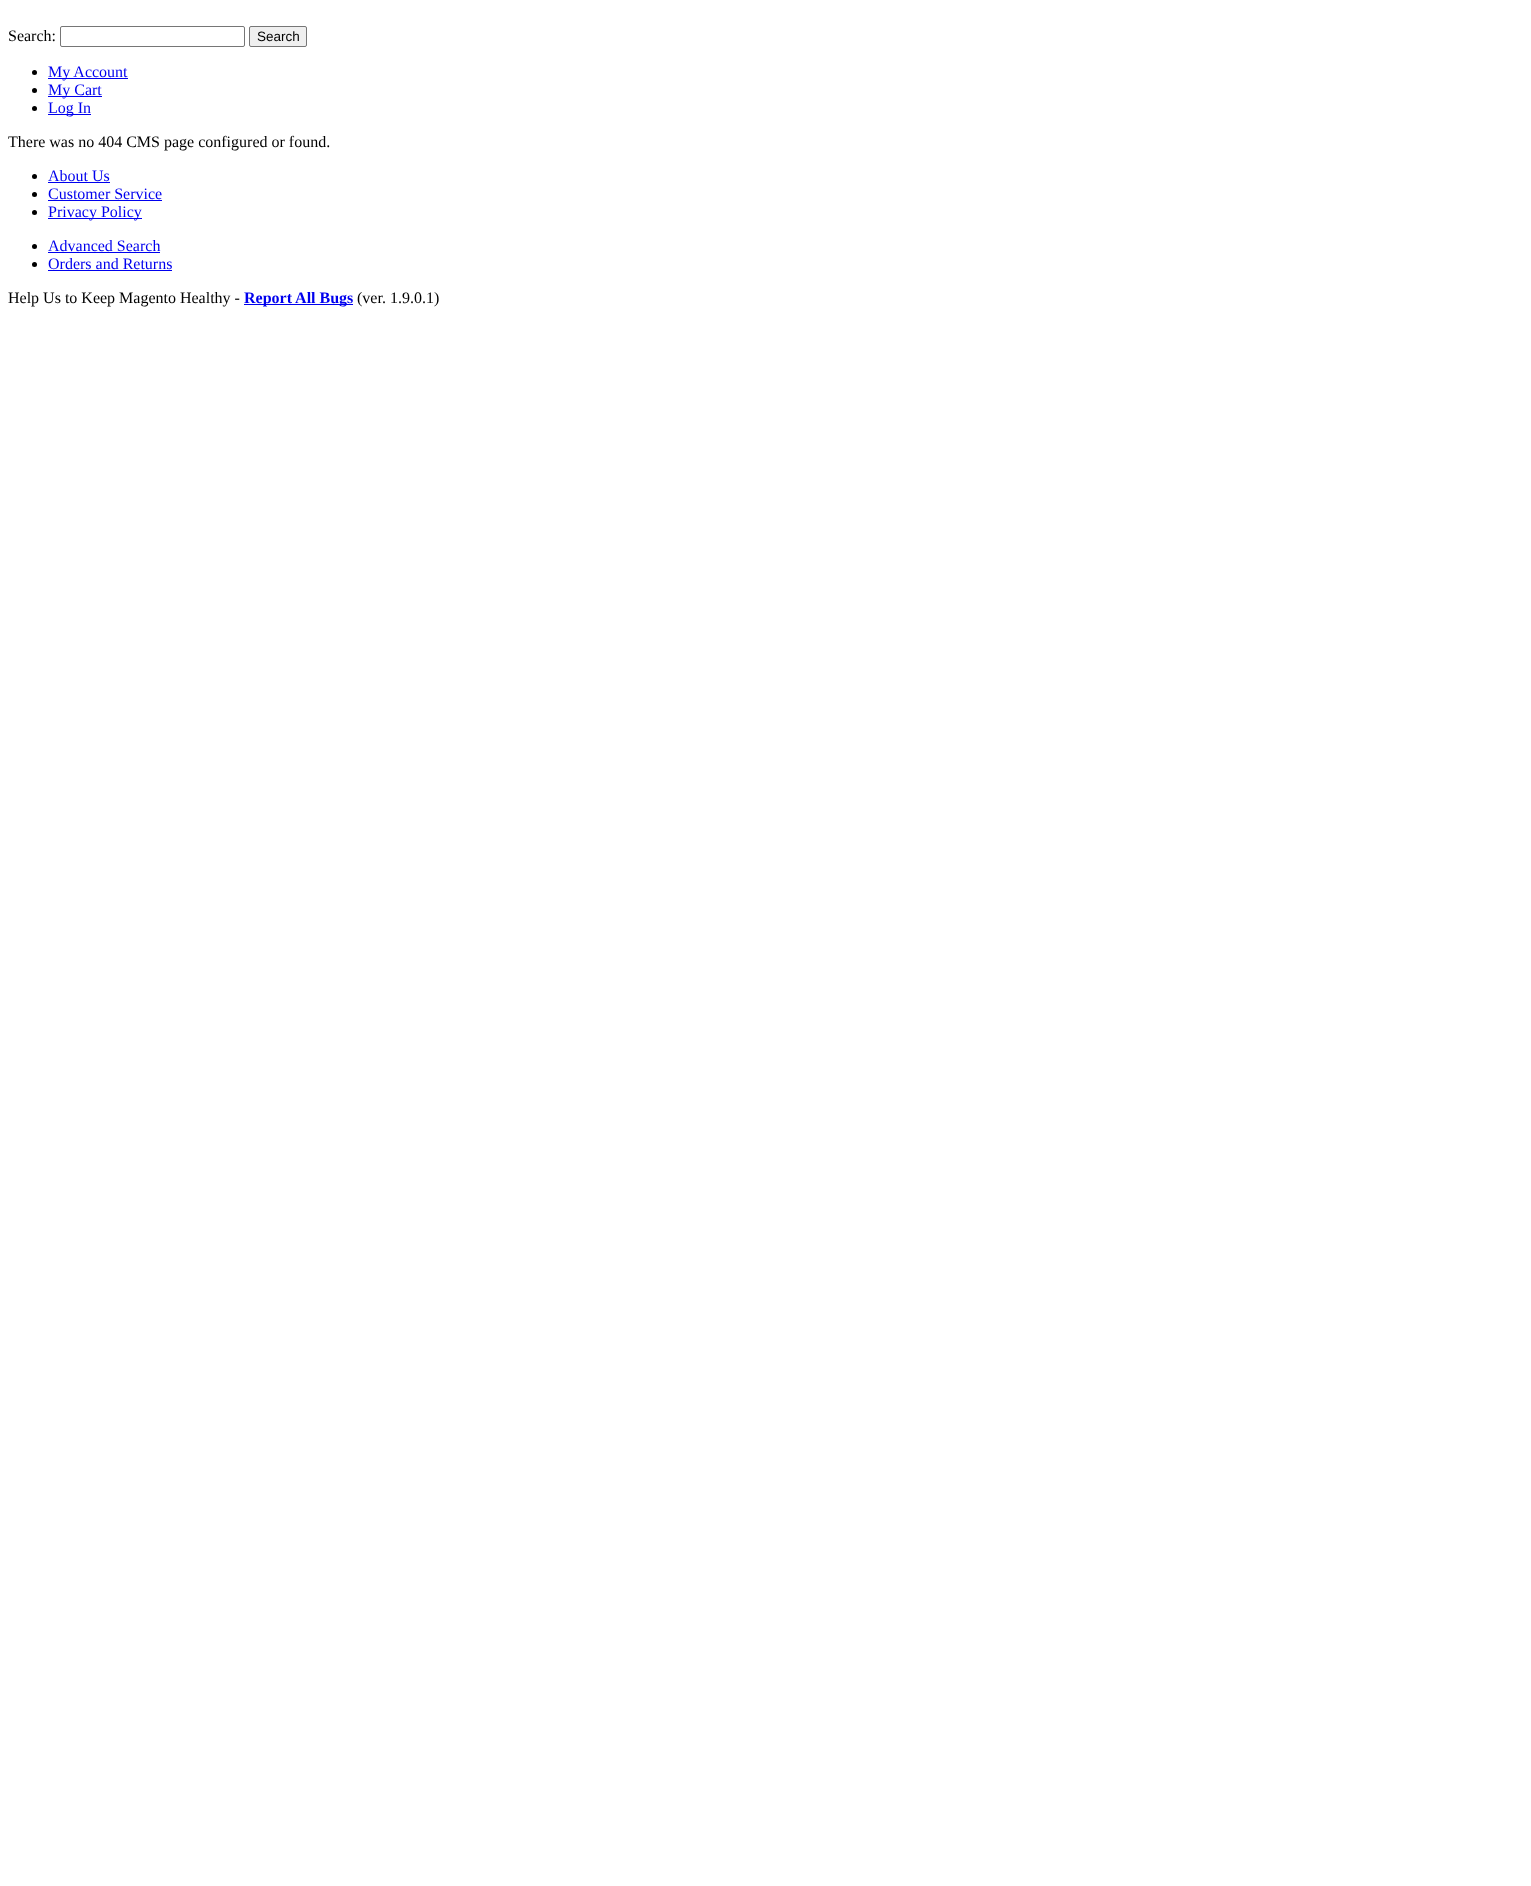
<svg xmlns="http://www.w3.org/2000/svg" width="1531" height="1886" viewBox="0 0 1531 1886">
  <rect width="100%" height="100%" fill="#ffffff"/>
  <text x="8" y="41" font-family="Liberation Serif" font-size="16" fill="#000000">Search:</text>
  <rect x="60.5" y="26.5" width="184" height="20" rx="1.5" fill="none" stroke="#767676"/>
  <rect x="249.5" y="26.5" width="57" height="20" rx="1.5" fill="#efefef" stroke="#767676"/>
  <text x="257" y="41" font-family="Liberation Sans" font-size="13.5" fill="#000000">Search</text>
  <circle cx="34.5" cy="72.5" r="2.5" fill="#000000"/>
  <rect x="48" y="78" width="80" height="1" fill="#0000ee"/>
  <text x="48" y="77" font-family="Liberation Serif" font-size="16" fill="#0000ee">My Account</text>
  <circle cx="34.5" cy="90.5" r="2.5" fill="#000000"/>
  <rect x="48" y="96" width="54" height="1" fill="#0000ee"/>
  <text x="48" y="95" font-family="Liberation Serif" font-size="16" fill="#0000ee">My Cart</text>
  <circle cx="34.5" cy="108.5" r="2.5" fill="#000000"/>
  <rect x="48" y="114" width="43" height="1" fill="#0000ee"/>
  <text x="48" y="113" font-family="Liberation Serif" font-size="16" fill="#0000ee">Log In</text>
  <text x="8" y="147" font-family="Liberation Serif" font-size="16" fill="#000000">There was no 404 CMS page configured or found.</text>
  <circle cx="34.5" cy="176.5" r="2.5" fill="#000000"/>
  <text x="48" y="181" font-family="Liberation Serif" font-size="16" fill="#0000ee">About Us</text>
  <rect x="48" y="182" width="62" height="1" fill="#0000ee"/>
  <circle cx="34.5" cy="194.5" r="2.5" fill="#000000"/>
  <text x="48" y="199" font-family="Liberation Serif" font-size="16" fill="#0000ee">Customer Service</text>
  <rect x="48" y="200" width="114" height="1" fill="#0000ee"/>
  <circle cx="34.5" cy="212.5" r="2.5" fill="#000000"/>
  <rect x="48" y="218" width="94" height="1" fill="#0000ee"/>
  <text x="48" y="217" font-family="Liberation Serif" font-size="16" fill="#0000ee">Privacy Policy</text>
  <circle cx="34.5" cy="246.5" r="2.5" fill="#000000"/>
  <text x="48" y="251" font-family="Liberation Serif" font-size="16" fill="#0000ee">Advanced Search</text>
  <rect x="48" y="252" width="112" height="1" fill="#0000ee"/>
  <circle cx="34.5" cy="264.5" r="2.5" fill="#000000"/>
  <text x="48" y="269" font-family="Liberation Serif" font-size="16" fill="#0000ee">Orders and Returns</text>
  <rect x="48" y="270" width="124" height="1" fill="#0000ee"/>
  <text x="8" y="303" font-family="Liberation Serif" font-size="16" fill="#000000">Help Us to Keep Magento Healthy -</text>
  <rect x="244" y="304" width="109" height="1" fill="#0000ee"/>
  <text x="244" y="303" font-family="Liberation Serif" font-size="16" font-weight="bold" fill="#0000ee">Report All Bugs</text>
  <text x="357" y="303" font-family="Liberation Serif" font-size="16" fill="#000000">(ver. 1.9.0.1)</text>
</svg>
